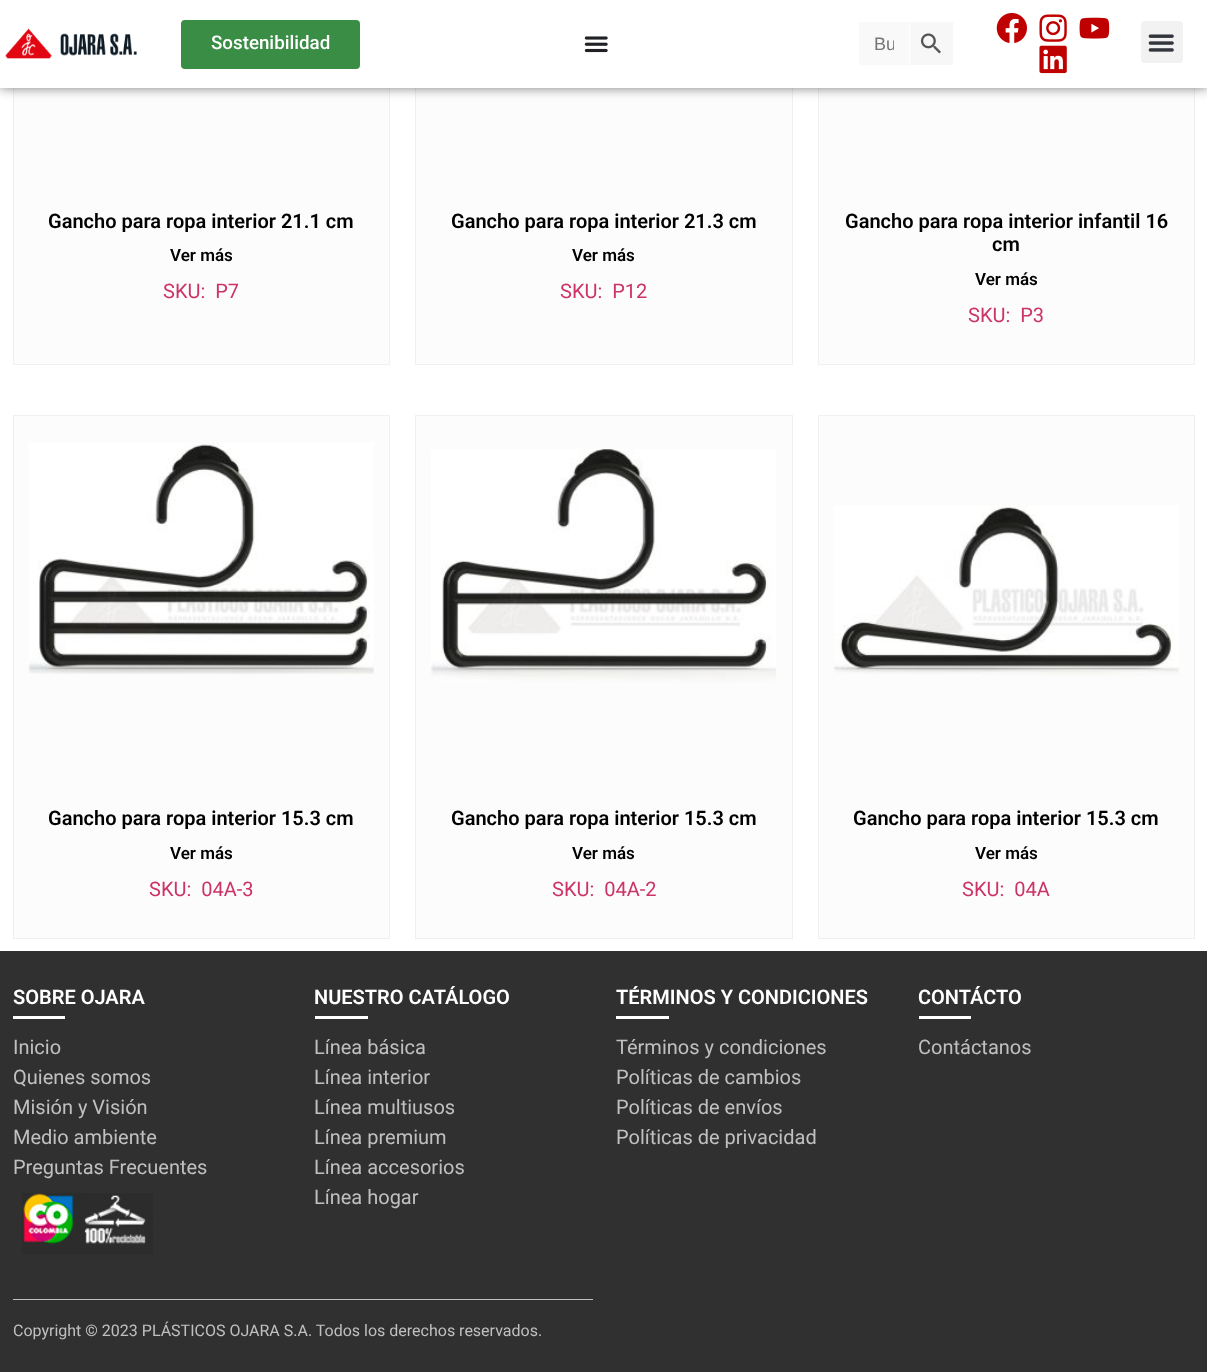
<svg xmlns="http://www.w3.org/2000/svg" width="1207" height="1372" viewBox="0 0 1207 1372">
  <defs>
    <filter id="blur1" x="-50%" y="-200%" width="200%" height="500%"><feGaussianBlur stdDeviation="6"/></filter>
    <clipPath id="clip1"><rect x="874" y="34" width="20" height="20"/></clipPath>
  </defs>
  <rect width="100%" height="100%" fill="#ffffff"/>
  <rect x="14" y="88" width="375" height="276" fill="#fcfcfc"/>
  <rect x="13.5" y="-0.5" width="376" height="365" fill="none" stroke="#f0f0f0"/>
  <rect x="416" y="88" width="376" height="276" fill="#fcfcfc"/>
  <rect x="415.5" y="-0.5" width="377" height="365" fill="none" stroke="#f0f0f0"/>
  <rect x="819" y="88" width="375" height="276" fill="#fcfcfc"/>
  <rect x="818.5" y="-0.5" width="376" height="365" fill="none" stroke="#f0f0f0"/>
  <rect x="0" y="0" width="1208" height="88" fill="#000000" fill-opacity="0.5" filter="url(#blur1)"/>
  <rect x="0" y="0" width="1207" height="88" fill="#ffffff"/>
  <image x="5" y="28" width="132" height="31" href="img1.png"/>
  <rect x="181" y="20" width="179" height="49" rx="4" fill="#3a8d45"/>
  <text x="211" y="49" font-family="Roboto" font-size="18.75" font-weight="500" fill="#ffffff">Sostenibilidad</text>
  <image x="584" y="36" width="24" height="17" href="img2.png"/>
  <rect x="859" y="22" width="50" height="43" fill="#f9f9f9"/>
  <g clip-path="url(#clip1)">
    <text x="874" y="50" font-family="Liberation Sans" font-size="18" fill="#757575">Bu</text>
  </g>
  <rect x="910" y="22" width="43" height="43" fill="#f7f7f7"/>
  <image x="920" y="33" width="21" height="21" href="img3.png"/>
  <image x="996" y="13" width="31" height="30" href="img4.png"/>
  <image x="1039" y="14" width="28" height="28" href="img5.png"/>
  <image x="1079" y="17" width="31" height="22" href="img6.png"/>
  <image x="1039" y="45" width="28" height="29" href="img7.png"/>
  <rect x="1141" y="21" width="42" height="42" rx="4" fill="#f2f2f2"/>
  <image x="1148" y="34" width="26" height="18" href="img8.png"/>
  <text x="48" y="228" font-family="Roboto" font-size="20" font-weight="600" fill="#000000">Gancho para ropa interior 21.1 cm</text>
  <text x="170" y="261" font-family="Roboto" font-size="17" font-weight="600" fill="#000000">Ver más</text>
  <text x="163" y="298" font-family="Roboto" font-size="20" fill="#cc3366" xml:space="preserve">SKU:  P7</text>
  <text x="451" y="228" font-family="Roboto" font-size="20" font-weight="600" fill="#000000">Gancho para ropa interior 21.3 cm</text>
  <text x="572" y="261" font-family="Roboto" font-size="17" font-weight="600" fill="#000000">Ver más</text>
  <text x="560" y="298" font-family="Roboto" font-size="20" fill="#cc3366" xml:space="preserve">SKU:  P12</text>
  <text x="845" y="228" font-family="Roboto" font-size="20" font-weight="600" fill="#000000">Gancho para ropa interior infantil 16</text>
  <text x="992" y="251" font-family="Roboto" font-size="20" font-weight="600" fill="#000000">cm</text>
  <text x="975" y="285" font-family="Roboto" font-size="17" font-weight="600" fill="#000000">Ver más</text>
  <text x="968" y="322" font-family="Roboto" font-size="20" fill="#cc3366" xml:space="preserve">SKU:  P3</text>
  <rect x="13.5" y="415.5" width="376" height="523" fill="#fcfcfc" stroke="#f0f0f0"/>
  <image x="28" y="442" width="346" height="233" href="img9.png"/>
  <text x="48" y="825" font-family="Roboto" font-size="20" font-weight="600" fill="#000000">Gancho para ropa interior 15.3 cm</text>
  <text x="170" y="859" font-family="Roboto" font-size="17" font-weight="600" fill="#000000">Ver más</text>
  <text x="149" y="896" font-family="Roboto" font-size="20" fill="#cc3366" xml:space="preserve">SKU:  04A-3</text>
  <rect x="415.5" y="415.5" width="377" height="523" fill="#fcfcfc" stroke="#f0f0f0"/>
  <image x="431" y="449" width="345" height="234" href="img10.png"/>
  <text x="451" y="825" font-family="Roboto" font-size="20" font-weight="600" fill="#000000">Gancho para ropa interior 15.3 cm</text>
  <text x="572" y="859" font-family="Roboto" font-size="17" font-weight="600" fill="#000000">Ver más</text>
  <text x="552" y="896" font-family="Roboto" font-size="20" fill="#cc3366" xml:space="preserve">SKU:  04A-2</text>
  <rect x="818.5" y="415.5" width="376" height="523" fill="#fcfcfc" stroke="#f0f0f0"/>
  <image x="833" y="505" width="346" height="171" href="img11.png"/>
  <text x="853" y="825" font-family="Roboto" font-size="20" font-weight="600" fill="#000000">Gancho para ropa interior 15.3 cm</text>
  <text x="975" y="859" font-family="Roboto" font-size="17" font-weight="600" fill="#000000">Ver más</text>
  <text x="962" y="896" font-family="Roboto" font-size="20" fill="#cc3366" xml:space="preserve">SKU:  04A</text>
  <rect x="0" y="951" width="1207" height="421" fill="#303030"/>
  <text x="13" y="1004" font-family="Roboto" font-size="20" font-weight="600" fill="#ffffff">SOBRE OJARA</text>
  <rect x="13" y="1016" width="52" height="3" fill="#ffffff"/>
  <text x="13" y="1054" font-family="Roboto" font-size="20" fill="#c0c0c0">Inicio</text>
  <text x="13" y="1084" font-family="Roboto" font-size="20" fill="#c0c0c0">Quienes somos</text>
  <text x="13" y="1114" font-family="Roboto" font-size="20" fill="#c0c0c0">Misión y Visión</text>
  <text x="13" y="1144" font-family="Roboto" font-size="20" fill="#c0c0c0">Medio ambiente</text>
  <text x="13" y="1174" font-family="Roboto" font-size="20" fill="#c0c0c0">Preguntas Frecuentes</text>
  <image x="22" y="1193" width="131" height="61" href="img12.png"/>
  <text x="314" y="1004" font-family="Roboto" font-size="20" font-weight="600" fill="#ffffff">NUESTRO CATÁLOGO</text>
  <rect x="315" y="1016" width="53" height="3" fill="#ffffff"/>
  <text x="314" y="1054" font-family="Roboto" font-size="20" fill="#c0c0c0">Línea básica</text>
  <text x="314" y="1084" font-family="Roboto" font-size="20" fill="#c0c0c0">Línea interior</text>
  <text x="314" y="1114" font-family="Roboto" font-size="20" fill="#c0c0c0">Línea multiusos</text>
  <text x="314" y="1144" font-family="Roboto" font-size="20" fill="#c0c0c0">Línea premium</text>
  <text x="314" y="1174" font-family="Roboto" font-size="20" fill="#c0c0c0">Línea accesorios</text>
  <text x="314" y="1204" font-family="Roboto" font-size="20" fill="#c0c0c0">Línea hogar</text>
  <text x="616" y="1004" font-family="Roboto" font-size="20" font-weight="600" fill="#ffffff">TÉRMINOS Y CONDICIONES</text>
  <rect x="616" y="1016" width="53" height="3" fill="#ffffff"/>
  <text x="616" y="1054" font-family="Roboto" font-size="20" fill="#c0c0c0">Términos y condiciones</text>
  <text x="616" y="1084" font-family="Roboto" font-size="20" fill="#c0c0c0">Políticas de cambios</text>
  <text x="616" y="1114" font-family="Roboto" font-size="20" fill="#c0c0c0">Políticas de envíos</text>
  <text x="616" y="1144" font-family="Roboto" font-size="20" fill="#c0c0c0">Políticas de privacidad</text>
  <text x="918" y="1004" font-family="Roboto" font-size="20" font-weight="600" fill="#ffffff">CONTÁCTO</text>
  <rect x="919" y="1016" width="52" height="3" fill="#ffffff"/>
  <text x="918" y="1054" font-family="Roboto" font-size="20" fill="#c0c0c0">Contáctanos</text>
  <rect x="13" y="1299" width="580" height="1" fill="#c0c0c0"/>
  <text x="13" y="1336" font-family="Roboto" font-size="16" fill="#c0c0c0">Copyright © 2023 PLÁSTICOS OJARA S.A. Todos los derechos reservados.</text>
</svg>
